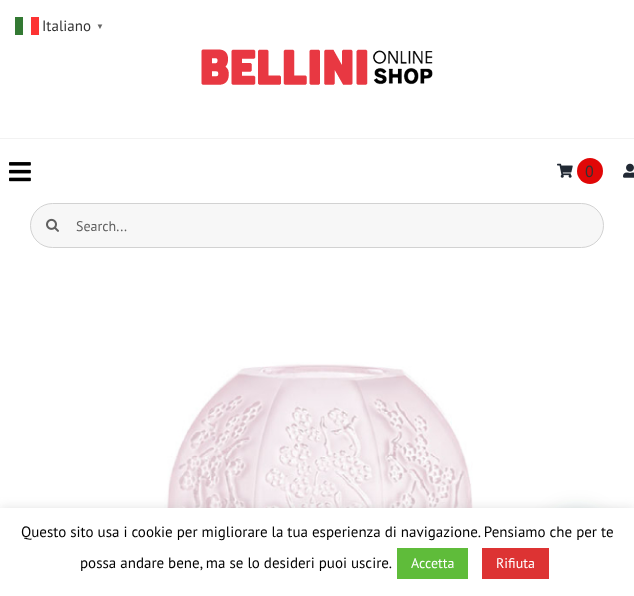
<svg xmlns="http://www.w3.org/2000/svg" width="634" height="596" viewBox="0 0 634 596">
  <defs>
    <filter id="blur1" x="-50%" y="-200%" width="200%" height="500%"><feGaussianBlur stdDeviation="12"/></filter>
    <filter id="blur2" x="-50%" y="-200%" width="200%" height="500%"><feGaussianBlur stdDeviation="5"/></filter>
  </defs>
  <rect width="100%" height="100%" fill="#ffffff"/>
  <text x="42" y="31" font-family="PT Sans" font-size="15" fill="#333333">Italiano</text>
  <rect x="15" y="17" width="8" height="18" fill="#337933"/>
  <rect x="31" y="17" width="8" height="18" fill="#fd3333"/>
  <text x="96" y="29" font-family="Liberation Serif" font-size="8" font-weight="bold" fill="#666666">▼</text>
  <rect x="547" y="514" width="60" height="60" rx="30" fill="#075e54" fill-opacity="0.24" filter="url(#blur1)"/>
  <image x="164" y="362" width="309" height="146" href="img6.png"/>
  <rect x="0" y="507" width="634" height="88" fill="#acabab" fill-opacity="0.3" filter="url(#blur2)"/>
  <rect x="0" y="508" width="634" height="88" fill="#ffffff"/>
  <text x="21" y="537" font-family="PT Sans" font-size="15" fill="#000000">Questo sito usa i cookie per migliorare la tua esperienza di navigazione. Pensiamo che per te</text>
  <text x="80" y="568" font-family="PT Sans" font-size="15" fill="#000000">possa andare bene, ma se lo desideri puoi uscire.</text>
  <rect x="397" y="548" width="71" height="31" fill="#5fbc3a"/>
  <text x="411" y="568" font-family="PT Sans" font-size="14" fill="#ffffff">Accetta</text>
  <rect x="482" y="548" width="67" height="31" fill="#dd3333"/>
  <text x="496" y="568" font-family="PT Sans" font-size="14" fill="#ffffff">Rifiuta</text>
  <rect x="0" y="138" width="634" height="1" fill="#f2f2f2"/>
  <image x="201" y="49" width="232" height="36" href="img1.png"/>
  <image x="9" y="162" width="22" height="20" href="img2.png"/>
  <image x="557" y="163" width="16" height="15" href="img3.png"/>
  <circle cx="590" cy="171" r="13" fill="#e10707"/>
  <text x="585" y="177" font-family="PT Sans" font-size="16" fill="#333333">0</text>
  <image x="623" y="163" width="11" height="15" href="img4.png"/>
  <rect x="30.5" y="203.5" width="573" height="44" rx="22" fill="#f7f7f7" stroke="#d2d2d2"/>
  <image x="46" y="218" width="13" height="14" href="img5.png"/>
  <text x="76" y="231" font-family="PT Sans" font-size="14" fill="#606060">Search...</text>
</svg>
